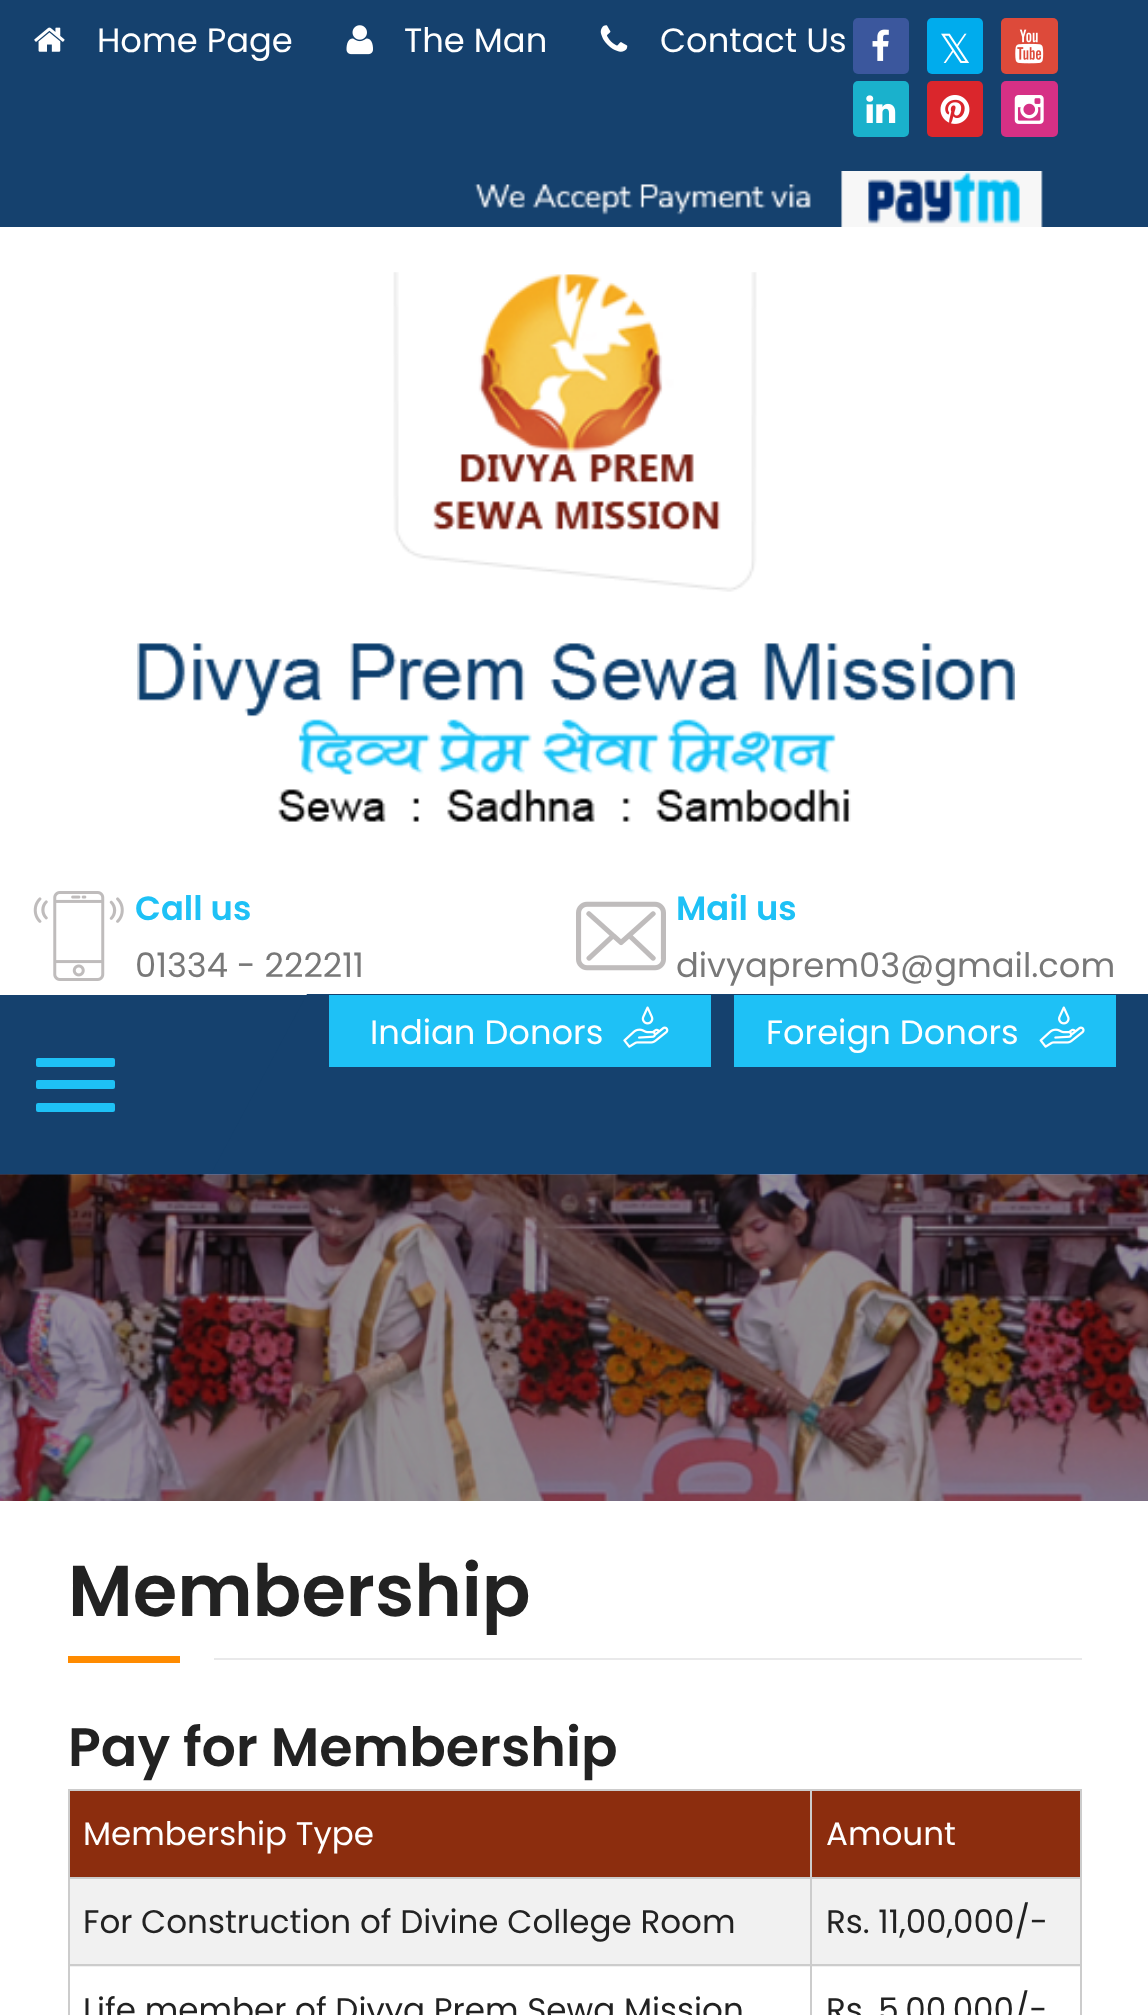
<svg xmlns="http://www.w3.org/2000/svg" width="1148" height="2015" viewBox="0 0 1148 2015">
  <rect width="100%" height="100%" fill="#ffffff"/>
  <rect x="0" y="0" width="1148" height="227" fill="#15416e"/>
  <image x="34" y="27" width="31" height="25" href="img1.png"/>
  <text x="97" y="52" font-family="Poppins" font-size="33.75" fill="#ffffff">Home Page</text>
  <image x="346" y="25" width="27" height="30" href="img2.png"/>
  <text x="404" y="52" font-family="Poppins" font-size="33.75" fill="#ffffff">The Man</text>
  <image x="600" y="25" width="28" height="27" href="img3.png"/>
  <text x="660" y="52" font-family="Poppins" font-size="33.75" fill="#ffffff">Contact Us</text>
  <rect x="853" y="18" width="56" height="56" rx="5" fill="#3b579d"/>
  <image x="872" y="29" width="17" height="32" href="img4.png"/>
  <rect x="927" y="18" width="56" height="56" rx="5" fill="#00aced"/>
  <text x="939" y="63" font-family="DejaVu Sans" font-size="40" fill="#ffffff">𝕏</text>
  <rect x="1001" y="18" width="57" height="56" rx="5" fill="#dd4a3a"/>
  <image x="1015" y="29" width="29" height="35" href="img5.png"/>
  <rect x="853" y="81" width="56" height="56" rx="5" fill="#1ab1cc"/>
  <image x="866" y="95" width="30" height="28" href="img6.png"/>
  <rect x="927" y="81" width="56" height="56" rx="5" fill="#da262c"/>
  <image x="940" y="95" width="30" height="29" href="img7.png"/>
  <rect x="1001" y="81" width="57" height="56" rx="5" fill="#d63085"/>
  <image x="1014" y="95" width="30" height="29" href="img8.png"/>
  <image x="474" y="171" width="569" height="56" href="img9.png"/>
  <image x="393" y="272" width="364" height="320" href="img10.png"/>
  <image x="137" y="643" width="878" height="179" href="img11.png"/>
  <image x="33" y="891" width="91" height="90" href="img12.png"/>
  <text x="135" y="920" font-family="Poppins" font-size="33.75" font-weight="600" fill="#1ec1f6">Call us</text>
  <text x="135" y="977" font-family="Poppins" font-size="33.75" fill="#787878">01334 - 222211</text>
  <image x="576" y="901" width="90" height="70" href="img13.png"/>
  <text x="676" y="920" font-family="Poppins" font-size="33.75" font-weight="600" fill="#1ec1f6">Mail us</text>
  <text x="676" y="977" font-family="Poppins" font-size="33.75" fill="#787878">divyaprem03@gmail.com</text>
  <rect x="0" y="995" width="1148" height="180" fill="#15416e"/>
  <path d="M307 994H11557L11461 1174H211Z" fill="#15416e"/>
  <rect x="329" y="995" width="382" height="72" fill="#1ec1f6"/>
  <text x="370" y="1044" font-family="Poppins" font-size="33.75" fill="#ffffff">Indian Donors</text>
  <image x="623" y="1006" width="46" height="42" href="img14.png"/>
  <rect x="734" y="995" width="382" height="72" fill="#1ec1f6"/>
  <text x="766" y="1044" font-family="Poppins" font-size="33.75" fill="#ffffff">Foreign Donors</text>
  <image x="1039" y="1006" width="46" height="42" href="img15.png"/>
  <rect x="36" y="1058" width="79" height="9" rx="2" fill="#1ec1f6"/>
  <rect x="36" y="1080" width="79" height="9" rx="2" fill="#1ec1f6"/>
  <rect x="36" y="1103" width="79" height="9" rx="2" fill="#1ec1f6"/>
  <image x="0" y="1174" width="1148" height="327" href="img16.png"/>
  <text x="68" y="1616" font-family="Poppins" font-size="72" font-weight="600" fill="#222222">Membership</text>
  <rect x="68" y="1656" width="112" height="7" fill="#ff8b00"/>
  <rect x="214" y="1658" width="868" height="2" fill="#e9e9ea"/>
  <text x="68" y="1766" font-family="Poppins" font-size="54" font-weight="600" fill="#222222">Pay for Membership</text>
  <rect x="70" y="1791" width="740" height="86" fill="#8c2d0e"/>
  <rect x="810" y="1789" width="272" height="2" fill="#cccccc"/>
  <rect x="810" y="1877" width="272" height="2" fill="#cccccc"/>
  <rect x="70" y="1879" width="1010" height="88" fill="#f1f1f1"/>
  <rect x="810" y="1964" width="272" height="2" fill="#cccccc"/>
  <rect x="810" y="1964" width="2" height="51" fill="#cccccc"/>
  <rect x="68" y="1964" width="744" height="2" fill="#cccccc"/>
  <rect x="810" y="1877" width="2" height="90" fill="#cccccc"/>
  <rect x="68" y="1877" width="744" height="2" fill="#cccccc"/>
  <rect x="810" y="1789" width="2" height="90" fill="#cccccc"/>
  <rect x="68" y="1789" width="744" height="2" fill="#cccccc"/>
  <rect x="68" y="1964" width="2" height="51" fill="#cccccc"/>
  <rect x="68" y="1877" width="2" height="90" fill="#cccccc"/>
  <rect x="68" y="1789" width="2" height="90" fill="#cccccc"/>
  <text x="83" y="1845" font-family="Poppins" font-size="32.6" fill="#ffffff">Membership Type</text>
  <rect x="812" y="1791" width="268" height="86" fill="#8c2d0e"/>
  <rect x="1080" y="1964" width="2" height="51" fill="#cccccc"/>
  <rect x="1080" y="1877" width="2" height="90" fill="#cccccc"/>
  <rect x="1080" y="1789" width="2" height="90" fill="#cccccc"/>
  <text x="826" y="1845" font-family="Poppins" font-size="32.6" fill="#ffffff">Amount</text>
  <text x="83" y="1933" font-family="Poppins" font-size="32.6" fill="#222222">For Construction of Divine College Room</text>
  <text x="826" y="1933" font-family="Poppins" font-size="32.6" fill="#222222">Rs. 11,00,000/-</text>
  <text x="83" y="2021" font-family="Poppins" font-size="32.6" fill="#222222">Life member of Divya Prem Sewa Mission</text>
  <text x="826" y="2021" font-family="Poppins" font-size="32.6" fill="#222222">Rs. 5,00,000/-</text>
</svg>
